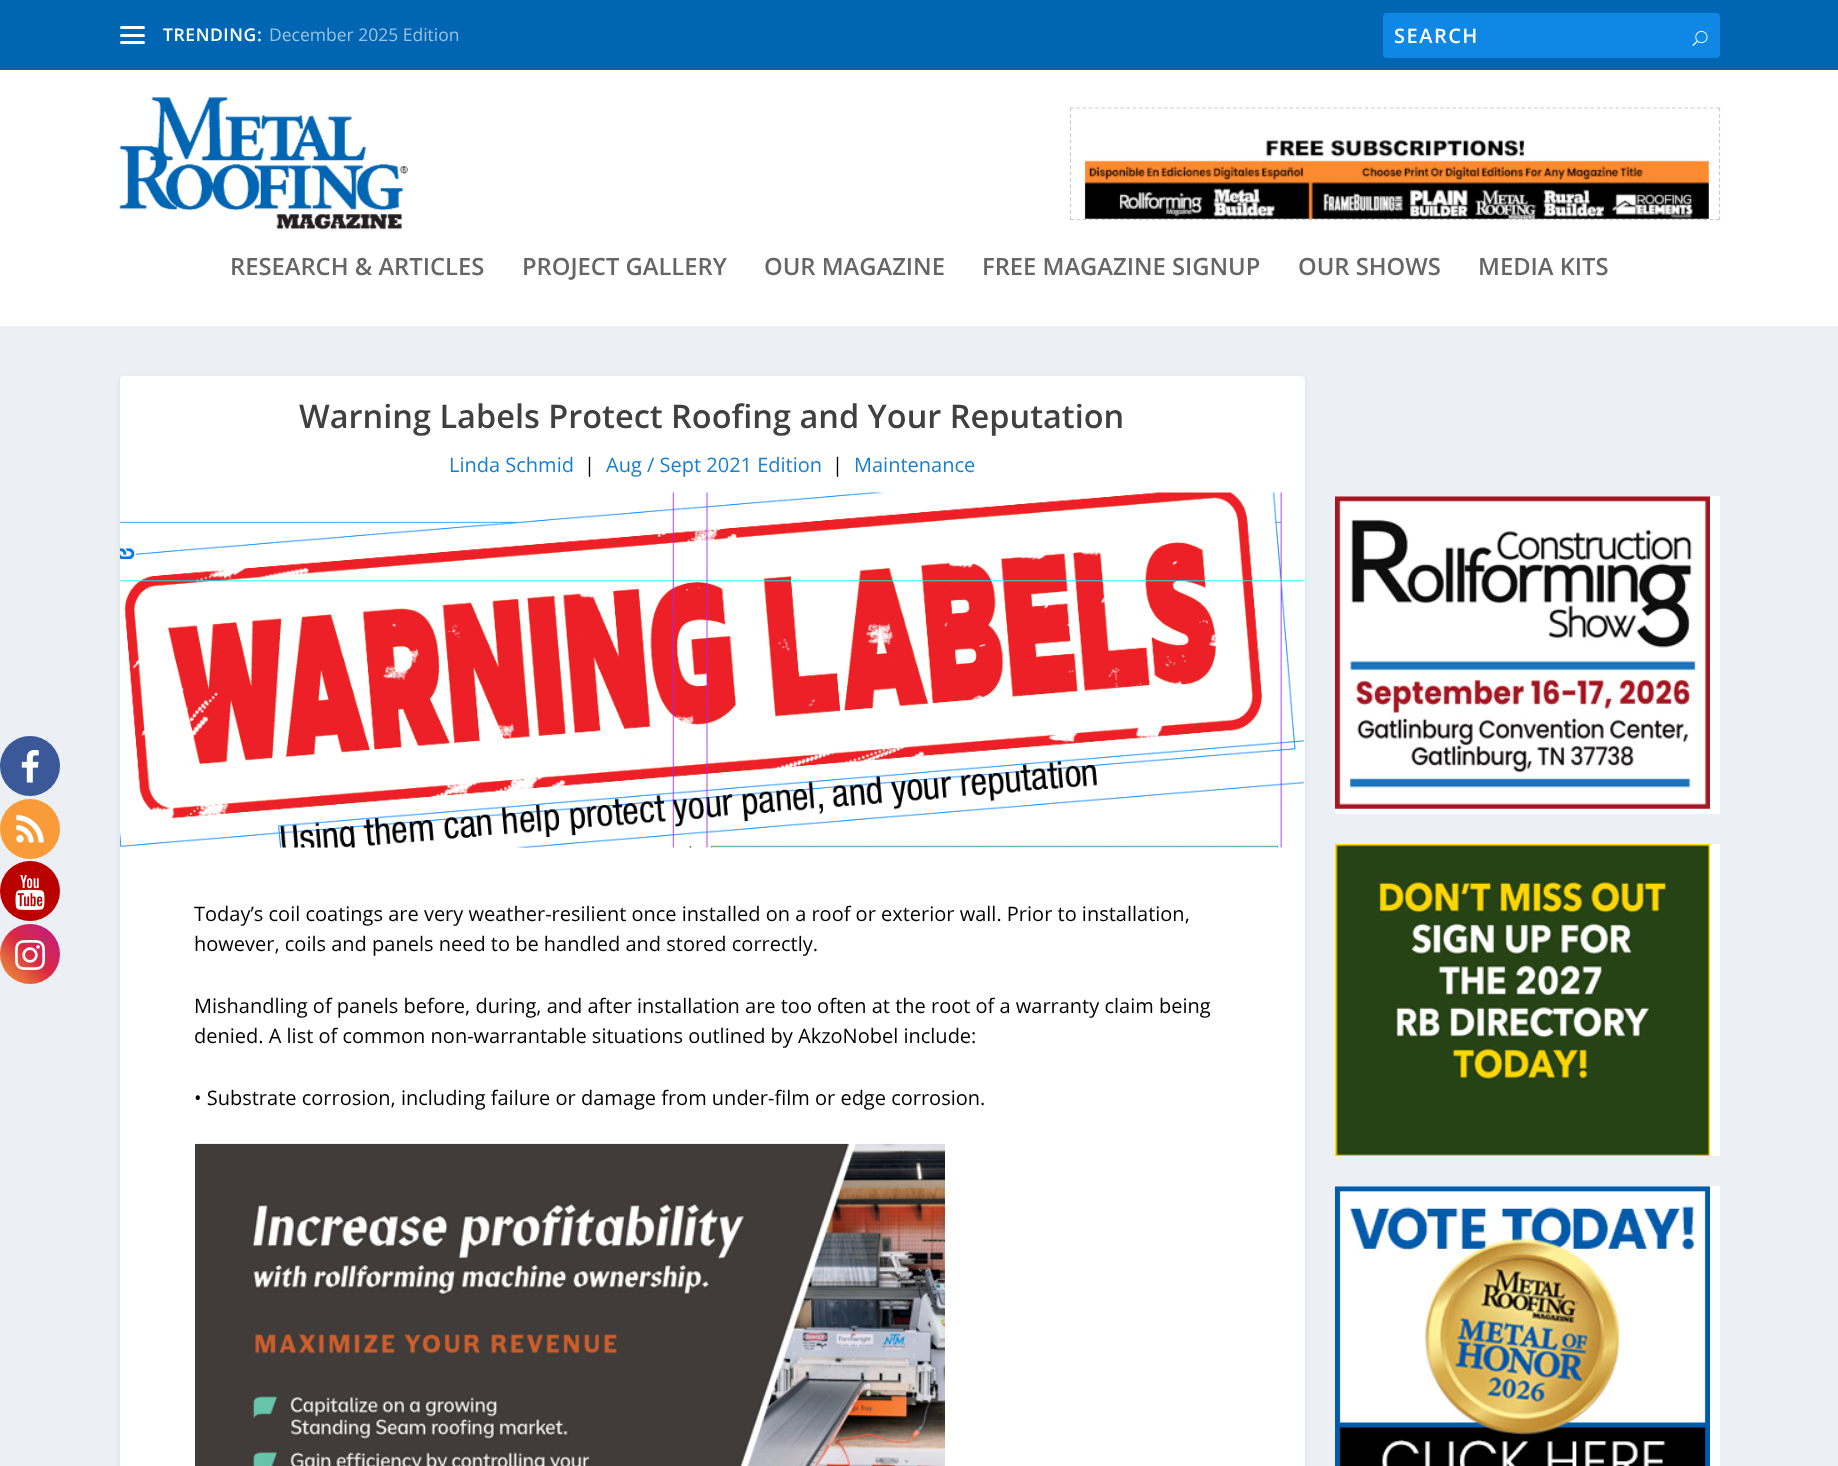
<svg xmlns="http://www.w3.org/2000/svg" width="1838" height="1466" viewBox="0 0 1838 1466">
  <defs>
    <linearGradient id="g1" gradientUnits="userSpaceOnUse" x1="0" y1="984" x2="60" y2="924"><stop offset="0" stop-color="#f09433"/><stop offset="0.25" stop-color="#e6683c"/><stop offset="0.5" stop-color="#dc2743"/><stop offset="0.75" stop-color="#cc2366"/><stop offset="1" stop-color="#bc1888"/></linearGradient>
    <filter id="blur1" x="-50%" y="-200%" width="200%" height="500%"><feGaussianBlur stdDeviation="2"/></filter>
  </defs>
  <rect width="100%" height="100%" fill="#ecf0f5"/>
  <circle cx="30" cy="766" r="30" fill="#3b5998"/>
  <image x="21" y="750" width="18" height="33" href="img1.png"/>
  <circle cx="30" cy="829" r="30" fill="#fa9b39"/>
  <image x="16" y="815" width="28" height="28" href="img2.png"/>
  <circle cx="30" cy="891" r="30" fill="#bb0000"/>
  <image x="15" y="875" width="30" height="35" href="img3.png"/>
  <circle cx="30" cy="954" r="30" fill="url(#g1)"/>
  <image x="15" y="940" width="30" height="30" href="img4.png"/>
  <rect x="0" y="0" width="1838" height="70" fill="#0066b3"/>
  <rect x="120" y="26" width="25" height="3" rx="1.5" fill="#ffffff"/>
  <rect x="120" y="34" width="25" height="3" rx="1.5" fill="#ffffff"/>
  <rect x="120" y="41" width="25" height="3" rx="1.5" fill="#ffffff"/>
  <text x="163" y="41" font-family="Open Sans" font-size="17.5" font-weight="600" letter-spacing="0.6" fill="#ffffff">TRENDING:</text>
  <text x="269" y="41" font-family="Open Sans" font-size="17.5" fill="#99c2e1">December 2025 Edition</text>
  <rect x="1383" y="13" width="337" height="45" rx="4" fill="#0e88e4"/>
  <text x="1394" y="43" font-family="Open Sans" font-size="20" font-weight="600" letter-spacing="1.5" fill="#ffffff">SEARCH</text>
  <image x="1692" y="30" width="16" height="16" href="img5.png"/>
  <rect x="0" y="70" width="1838" height="256" fill="#ffffff"/>
  <image x="119" y="97" width="289" height="133" href="img6.png"/>
  <path d="M1070 108H1720" fill="none" stroke="#cccccc" stroke-width="1.2" stroke-dasharray="3.75 2.52"/>
  <path d="M1719.5 107.5V220" fill="none" stroke="#cccccc" stroke-width="1.2" stroke-dasharray="3.75 2.65"/>
  <path d="M1070 219.5H1720" fill="none" stroke="#cccccc" stroke-width="1.2" stroke-dasharray="3.75 2.52"/>
  <path d="M1070.5 107.5V220" fill="none" stroke="#cccccc" stroke-width="1.2" stroke-dasharray="3.75 2.65"/>
  <image x="1084" y="139" width="625" height="80" href="img7.png"/>
  <text x="230" y="275" font-family="Open Sans" font-size="23.75" font-weight="600" fill="#666666">RESEARCH &amp; ARTICLES</text>
  <text x="522" y="275" font-family="Open Sans" font-size="23.75" font-weight="600" fill="#666666">PROJECT GALLERY</text>
  <text x="764" y="275" font-family="Open Sans" font-size="23.75" font-weight="600" fill="#666666">OUR MAGAZINE</text>
  <text x="982" y="275" font-family="Open Sans" font-size="23.75" font-weight="600" fill="#666666">FREE MAGAZINE SIGNUP</text>
  <text x="1298" y="275" font-family="Open Sans" font-size="23.75" font-weight="600" fill="#666666">OUR SHOWS</text>
  <text x="1478" y="275" font-family="Open Sans" font-size="23.75" font-weight="600" fill="#666666">MEDIA KITS</text>
  <rect x="120" y="378" width="1185" height="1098" rx="4" fill="#000000" fill-opacity="0.1" filter="url(#blur1)"/>
  <rect x="120" y="376" width="1185" height="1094" rx="4" fill="#ffffff"/>
  <text x="299" y="428" font-family="Open Sans" font-size="32.5" font-weight="600" fill="#404040">Warning Labels Protect Roofing and Your Reputation</text>
  <text x="449" y="472" font-family="Open Sans" font-size="20" fill="#177fcd">Linda Schmid</text>
  <text x="584" y="472" font-family="Open Sans" font-size="20" fill="#000000">|</text>
  <text x="606" y="472" font-family="Open Sans" font-size="20" fill="#177fcd">Aug / Sept 2021 Edition</text>
  <text x="832" y="472" font-family="Open Sans" font-size="20" fill="#000000">|</text>
  <text x="854" y="472" font-family="Open Sans" font-size="20" fill="#177fcd">Maintenance</text>
  <image x="120" y="492" width="1184" height="356" href="img8.png"/>
  <text x="194" y="921" font-family="Open Sans" font-size="20" fill="#000000">Today’s coil coatings are very weather-resilient once installed on a roof or exterior wall. Prior to installation,</text>
  <text x="194" y="951" font-family="Open Sans" font-size="20" fill="#000000">however, coils and panels need to be handled and stored correctly.</text>
  <text x="194" y="1013" font-family="Open Sans" font-size="20" fill="#000000">Mishandling of panels before, during, and after installation are too often at the root of a warranty claim being</text>
  <text x="194" y="1043" font-family="Open Sans" font-size="20" fill="#000000">denied. A list of common non-warrantable situations outlined by AkzoNobel include:</text>
  <text x="194" y="1105" font-family="Open Sans" font-size="20" fill="#000000">• Substrate corrosion, including failure or damage from under-film or edge corrosion.</text>
  <image x="195" y="1143" width="750" height="323" href="img9.png"/>
  <rect x="1335" y="496" width="385" height="318" fill="#ffffff"/>
  <image x="1335" y="496" width="375" height="313" href="img10.png"/>
  <rect x="1710" y="844" width="10" height="312" fill="#ffffff"/>
  <image x="1335" y="843" width="375" height="314" href="img11.png"/>
  <rect x="1335" y="1186" width="385" height="280" fill="#ffffff"/>
  <image x="1335" y="1186" width="375" height="280" href="img12.png"/>
</svg>
